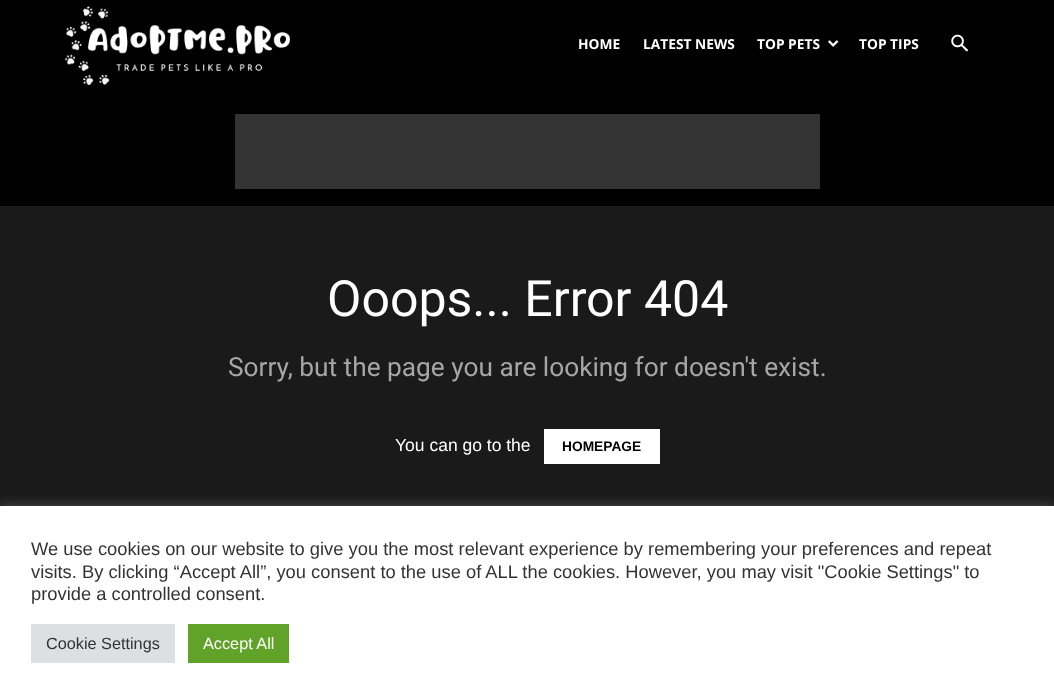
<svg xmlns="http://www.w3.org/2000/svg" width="1054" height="699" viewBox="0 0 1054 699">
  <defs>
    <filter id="blur1" x="-50%" y="-200%" width="200%" height="500%"><feGaussianBlur stdDeviation="6"/></filter>
  </defs>
  <rect width="100%" height="100%" fill="#1a1a1a"/>
  <rect x="0" y="0" width="1054" height="206" fill="#000000"/>
  <rect x="235" y="114" width="585" height="75" fill="#333333"/>
  <image x="65" y="6" width="225" height="79" href="img1.png"/>
  <text x="578" y="49" font-family="Open Sans" font-size="13.75" font-weight="bold" fill="#ffffff">HOME</text>
  <text x="643" y="49" font-family="Open Sans" font-size="13.75" font-weight="bold" fill="#ffffff">LATEST NEWS</text>
  <text x="757" y="49" font-family="Open Sans" font-size="13.75" font-weight="bold" fill="#ffffff">TOP PETS</text>
  <image x="828" y="40" width="11" height="7" href="img2.png"/>
  <text x="859" y="49" font-family="Open Sans" font-size="13.75" font-weight="bold" fill="#ffffff">TOP TIPS</text>
  <image x="951" y="34" width="17" height="18" href="img3.png"/>
  <text x="327" y="316" font-family="Roboto" font-size="50" fill="#ffffff">Ooops... Error 404</text>
  <text x="228" y="376" font-family="Roboto" font-size="26.25" fill="#a6a6a6">Sorry, but the page you are looking for doesn't exist.</text>
  <text x="395" y="451" font-family="Liberation Sans" font-size="17.5" fill="#ffffff">You can go to the</text>
  <rect x="544" y="429" width="116" height="35" fill="#ffffff"/>
  <text x="562" y="451" font-family="Liberation Sans" font-size="13.75" font-weight="bold" fill="#000000">HOMEPAGE</text>
  <rect x="0" y="505" width="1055" height="194" fill="#acabab" fill-opacity="0.3" filter="url(#blur1)"/>
  <rect x="0" y="506" width="1054" height="193" fill="#ffffff"/>
  <text x="31" y="555" font-family="Liberation Sans" font-size="18.33" fill="#333333">We use cookies on our website to give you the most relevant experience by remembering your preferences and repeat</text>
  <text x="31" y="578" font-family="Liberation Sans" font-size="18.33" fill="#333333">visits. By clicking “Accept All”, you consent to the use of ALL the cookies. However, you may visit "Cookie Settings" to</text>
  <text x="31" y="600" font-family="Liberation Sans" font-size="18.33" fill="#333333">provide a controlled consent.</text>
  <rect x="31" y="624" width="144" height="39" fill="#dedfe0"/>
  <text x="46" y="649" font-family="Liberation Sans" font-size="16.25" fill="#333333">Cookie Settings</text>
  <rect x="188" y="624" width="101" height="39" fill="#61a229"/>
  <text x="203" y="649" font-family="Liberation Sans" font-size="16.25" fill="#ffffff">Accept All</text>
</svg>
